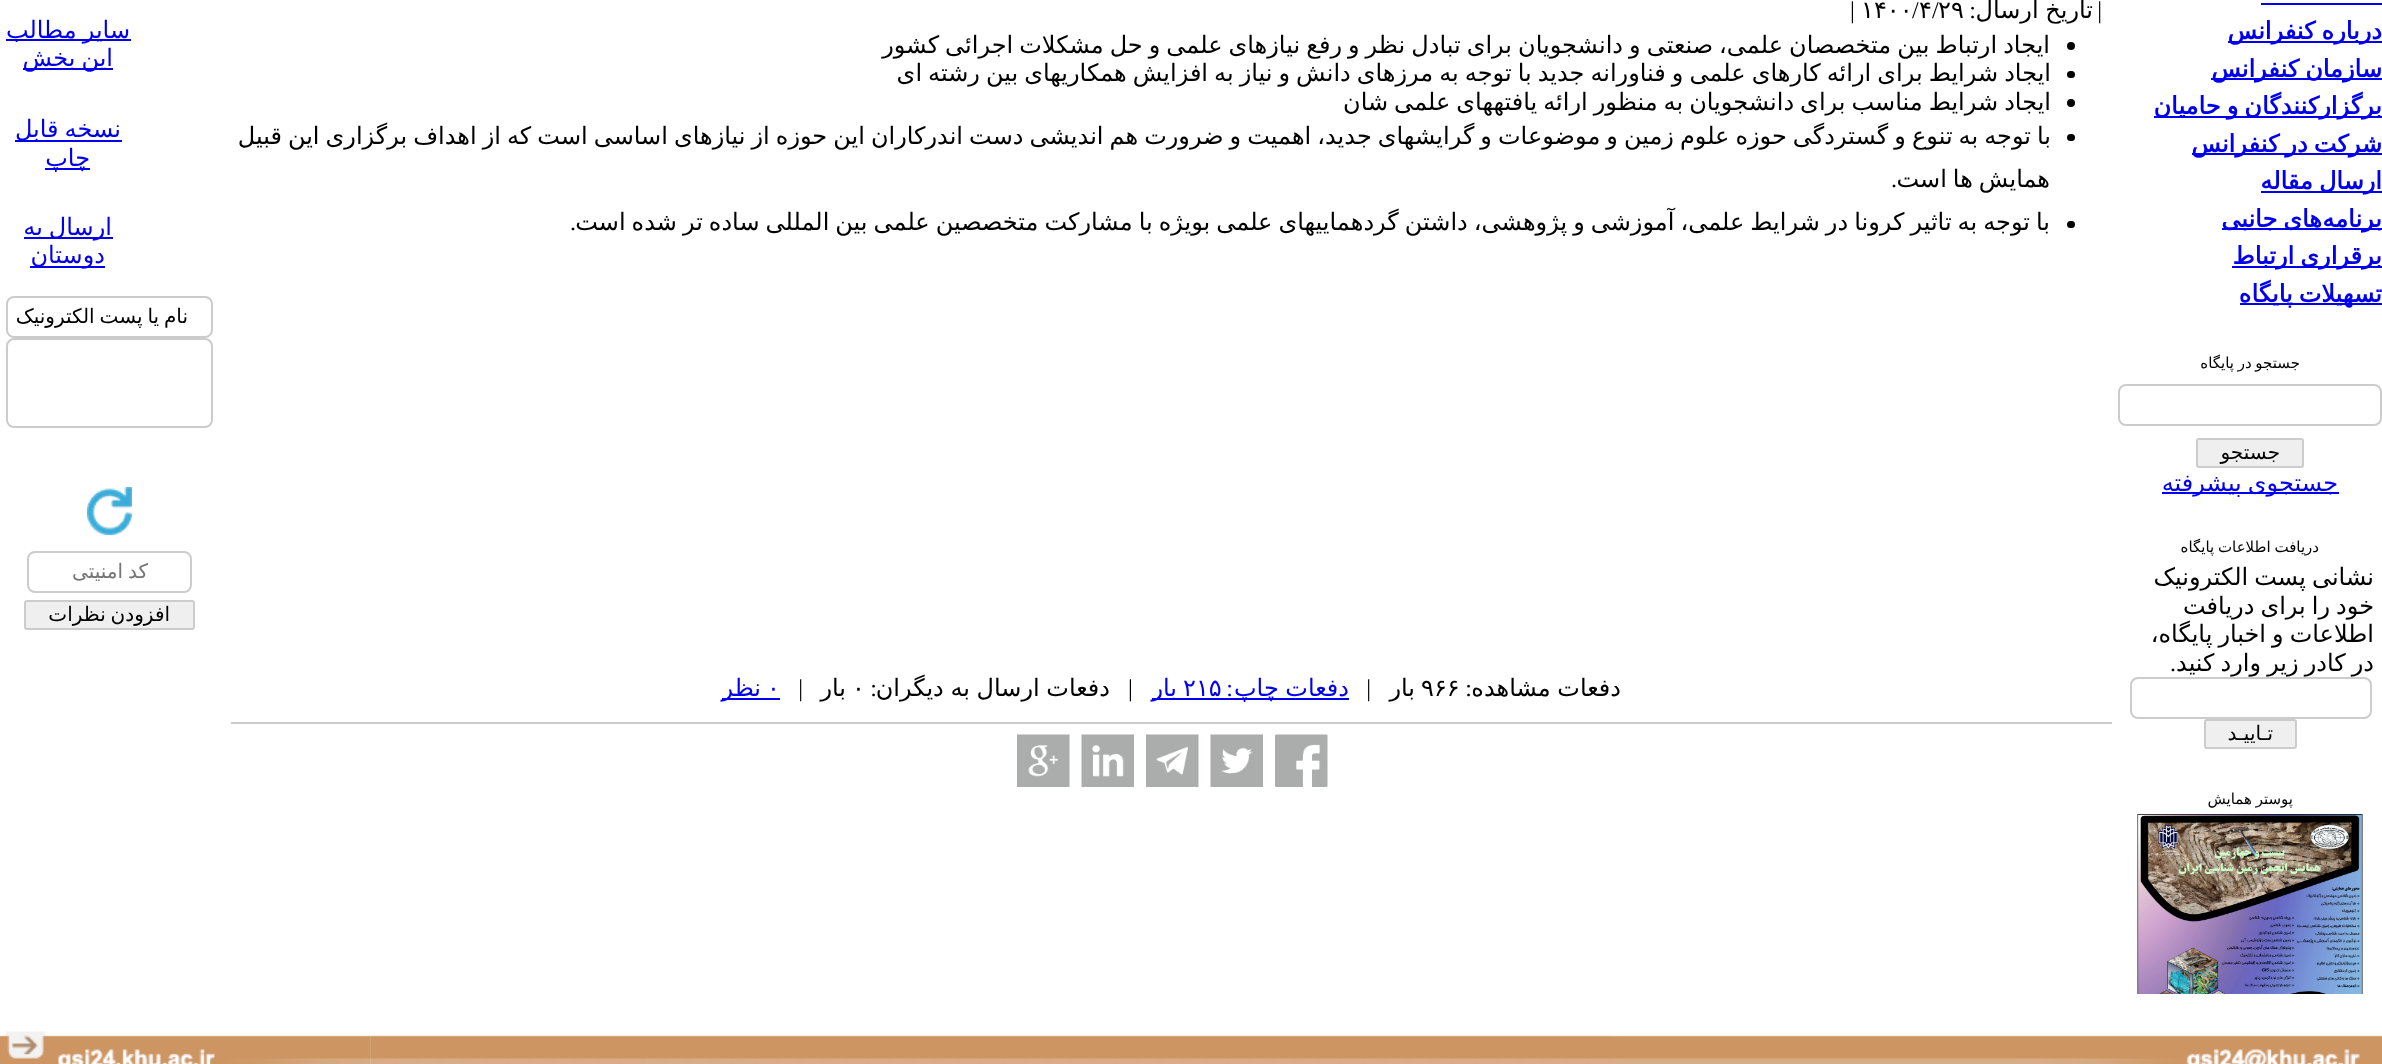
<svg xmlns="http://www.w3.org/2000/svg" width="2382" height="1064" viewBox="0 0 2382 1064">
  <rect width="100%" height="100%" fill="#ffffff"/>
  <rect x="2261" y="3" width="121" height="2" fill="#0000ee"/>
  <rect x="2228" y="41" width="154" height="2" fill="#0000ee"/>
  <text x="2382" y="39" word-spacing="-1.6" font-family="DejaVu Sans" font-size="24" font-weight="bold" direction="rtl" fill="#0000ee">درباره کنفرانس</text>
  <rect x="2211" y="78" width="171" height="2" fill="#0000ee"/>
  <text x="2382" y="77" word-spacing="-1.6" font-family="DejaVu Sans" font-size="24" font-weight="bold" direction="rtl" fill="#0000ee">سازمان کنفرانس</text>
  <rect x="2154" y="116" width="228" height="2" fill="#0000ee"/>
  <text x="2382" y="114" word-spacing="-1.6" font-family="DejaVu Sans" font-size="24" font-weight="bold" direction="rtl" fill="#0000ee">برگزارکنندگان و حامیان</text>
  <rect x="2192" y="153" width="190" height="2" fill="#0000ee"/>
  <text x="2382" y="152" word-spacing="-1.6" font-family="DejaVu Sans" font-size="24" font-weight="bold" direction="rtl" fill="#0000ee">شرکت در کنفرانس</text>
  <rect x="2261" y="191" width="121" height="2" fill="#0000ee"/>
  <text x="2382" y="189" word-spacing="-1.6" font-family="DejaVu Sans" font-size="24" font-weight="bold" direction="rtl" fill="#0000ee">ارسال مقاله</text>
  <rect x="2222" y="228" width="160" height="2" fill="#0000ee"/>
  <text x="2382" y="227" font-family="DejaVu Sans" font-size="24" font-weight="bold" direction="rtl" fill="#0000ee">برنامه</text>
  <text x="2322" y="227" word-spacing="-1.6" font-family="DejaVu Sans" font-size="24" font-weight="bold" direction="rtl" fill="#0000ee">های جانبی</text>
  <rect x="2232" y="266" width="150" height="2" fill="#0000ee"/>
  <text x="2382" y="264" word-spacing="-1.6" font-family="DejaVu Sans" font-size="24" font-weight="bold" direction="rtl" fill="#0000ee">برقراری ارتباط</text>
  <rect x="2240" y="303" width="142" height="2" fill="#0000ee"/>
  <text x="2382" y="302" word-spacing="-1.6" font-family="DejaVu Sans" font-size="24" font-weight="bold" direction="rtl" fill="#0000ee">تسهیلات پایگاه</text>
  <text x="2300" y="368" word-spacing="-1" font-family="DejaVu Sans" font-size="15" direction="rtl" fill="#000000">جستجو در پایگاه</text>
  <rect x="2119" y="385" width="262" height="40" rx="7" fill="none" stroke="#cccccc" stroke-width="2"/>
  <rect x="2197" y="439" width="106" height="28" rx="2" fill="#efefef" stroke="#cccccc" stroke-width="2"/>
  <text x="2280" y="459" font-family="DejaVu Sans" font-size="20" direction="rtl" fill="#000000">جستجو</text>
  <rect x="2162" y="492" width="177" height="2" fill="#0000ee"/>
  <text x="2338" y="491" word-spacing="-1.6" font-family="DejaVu Sans" font-size="24" direction="rtl" fill="#0000ee">جستجوی پیشرفته</text>
  <text x="2319" y="552" word-spacing="-1" font-family="DejaVu Sans" font-size="15" direction="rtl" fill="#000000">دریافت اطلاعات پایگاه</text>
  <text x="2374" y="585" word-spacing="-1.6" font-family="DejaVu Sans" font-size="24" direction="rtl" fill="#000000">نشانی پست الکترونیک</text>
  <text x="2374" y="614" word-spacing="-1.6" font-family="DejaVu Sans" font-size="24" direction="rtl" fill="#000000">خود را برای دریافت</text>
  <text x="2374" y="642" word-spacing="-1.6" font-family="DejaVu Sans" font-size="24" direction="rtl" fill="#000000">اطلاعات و اخبار پایگاه،</text>
  <text x="2374" y="671" word-spacing="-1.6" font-family="DejaVu Sans" font-size="24" direction="rtl" fill="#000000">در کادر زیر وارد کنید</text>
  <text x="2176" y="671" font-family="Liberation Serif" font-size="24" direction="rtl" fill="#000000">.</text>
  <rect x="2131" y="678" width="240" height="40" rx="7" fill="none" stroke="#cccccc" stroke-width="2"/>
  <rect x="2205" y="720" width="91" height="28" rx="2" fill="#efefef" stroke="#cccccc" stroke-width="2"/>
  <text x="2273" y="740" font-family="DejaVu Sans" font-size="20" direction="rtl" fill="#000000">تـاییـد</text>
  <text x="2293" y="804" word-spacing="-1" font-family="DejaVu Sans" font-size="15" direction="rtl" fill="#000000">پوستر همایش</text>
  <image x="2137" y="814" width="226" height="180" href="img1.png"/>
  <text x="2102" y="18" font-family="Liberation Serif" font-size="24" direction="rtl" fill="#000000">|</text>
  <text x="2093" y="18" word-spacing="-1" font-family="DejaVu Sans" font-size="24" direction="rtl" fill="#000000">تاریخ ارسال</text>
  <text x="1976" y="18" font-family="Liberation Serif" font-size="24" direction="rtl" fill="#000000">:</text>
  <text x="1938" y="18" font-family="DejaVu Sans" font-size="24" fill="#000000">۲۹</text>
  <text x="1932" y="18" font-family="Liberation Serif" font-size="24" fill="#000000">/</text>
  <text x="1919" y="18" font-family="DejaVu Sans" font-size="24" fill="#000000">۴</text>
  <text x="1912" y="18" font-family="Liberation Serif" font-size="24" fill="#000000">/</text>
  <text x="1861" y="18" font-family="DejaVu Sans" font-size="24" fill="#000000">۱۴۰۰</text>
  <text x="1850" y="18" font-family="Liberation Serif" font-size="24" fill="#000000">|</text>
  <circle cx="2071" cy="46" r="4" fill="#000000"/>
  <text x="2050" y="53" word-spacing="-1.6" font-family="DejaVu Sans" font-size="24" direction="rtl" fill="#000000">ایجاد ارتباط بین متخصصان علمی، صنعتی و دانشجویان برای تبادل نظر و رفع نیازهای علمی و حل مشکلات اجرائی کشور</text>
  <rect x="2067" y="71" width="8" height="7" rx="3.5" fill="#000000"/>
  <text x="2051" y="81" word-spacing="-1.6" font-family="DejaVu Sans" font-size="24" direction="rtl" fill="#000000">ایجاد شرایط برای ارائه کارهای علمی و فناورانه جدید با توجه به مرزهای دانش و نیاز به افزایش همکاریهای بین رشته ای</text>
  <circle cx="2071" cy="103" r="4" fill="#000000"/>
  <text x="2051" y="110" word-spacing="-1.6" font-family="DejaVu Sans" font-size="24" direction="rtl" fill="#000000">ایجاد شرایط مناسب برای دانشجویان به منظور ارائه یافتههای علمی شان</text>
  <rect x="2067" y="134" width="8" height="7" rx="3.5" fill="#000000"/>
  <text x="2051" y="144" word-spacing="-1.6" font-family="DejaVu Sans" font-size="24" direction="rtl" fill="#000000">با توجه به تنوع و گستردگی حوزه علوم زمین و موضوعات و گرایشهای جدید، اهمیت و ضرورت هم اندیشی دست اندرکاران این حوزه از نیازهای اساسی است که از اهداف برگزاری این قبیل</text>
  <text x="2050" y="187" word-spacing="-1.6" font-family="DejaVu Sans" font-size="24" direction="rtl" fill="#000000">همایش ها است</text>
  <text x="1891" y="187" font-family="Liberation Serif" font-size="24" fill="#000000">.</text>
  <rect x="2067" y="221" width="8" height="7" rx="3.5" fill="#000000"/>
  <text x="2050" y="230" word-spacing="-1.6" font-family="DejaVu Sans" font-size="24" direction="rtl" fill="#000000">با توجه به تاثیر کرونا در شرایط علمی، آموزشی و پژوهشی، داشتن گردهماییهای علمی بویژه با مشارکت متخصصین علمی بین المللی ساده تر شده است</text>
  <text x="576" y="230" font-family="Liberation Serif" font-size="24" direction="rtl" fill="#000000">.</text>
  <rect x="6" y="39" width="125" height="2" fill="#0000ee"/>
  <text x="130" y="38" word-spacing="-1.6" font-family="DejaVu Sans" font-size="24" direction="rtl" fill="#0000ee">سایر مطالب</text>
  <rect x="23" y="68" width="90" height="2" fill="#0000ee"/>
  <text x="113" y="66" word-spacing="-1.6" font-family="DejaVu Sans" font-size="24" direction="rtl" fill="#0000ee">این بخش</text>
  <rect x="15" y="140" width="107" height="2" fill="#0000ee"/>
  <text x="121" y="137" word-spacing="-1.6" font-family="DejaVu Sans" font-size="24" direction="rtl" fill="#0000ee">نسخه قابل</text>
  <rect x="45" y="168" width="45" height="2" fill="#0000ee"/>
  <text x="90" y="166" font-family="DejaVu Sans" font-size="24" direction="rtl" fill="#0000ee">چاپ</text>
  <rect x="24" y="237" width="89" height="2" fill="#0000ee"/>
  <text x="112" y="235" word-spacing="-1.6" font-family="DejaVu Sans" font-size="24" direction="rtl" fill="#0000ee">ارسال به</text>
  <rect x="30" y="266" width="75" height="2" fill="#0000ee"/>
  <text x="105" y="263" font-family="DejaVu Sans" font-size="24" direction="rtl" fill="#0000ee">دوستان</text>
  <rect x="7" y="297" width="205" height="40" rx="7" fill="none" stroke="#cccccc" stroke-width="2"/>
  <text x="188" y="323" word-spacing="-1.5" font-family="DejaVu Sans" font-size="20" direction="rtl" fill="#000000">نام یا پست الکترونیک</text>
  <rect x="7" y="339" width="205" height="88" rx="7" fill="none" stroke="#cccccc" stroke-width="2"/>
  <image x="87" y="487" width="45" height="48" href="img2.png"/>
  <rect x="28" y="552" width="163" height="40" rx="7" fill="none" stroke="#cccccc" stroke-width="2"/>
  <text x="148" y="578" word-spacing="-1.5" font-family="DejaVu Sans" font-size="20" direction="rtl" fill="#757575">کد امنیتی</text>
  <rect x="25" y="601" width="169" height="28" rx="2" fill="#efefef" stroke="#cccccc" stroke-width="2"/>
  <text x="170" y="621" word-spacing="-1.5" font-family="DejaVu Sans" font-size="20" direction="rtl" fill="#000000">افزودن نظرات</text>
  <text x="1621" y="696" word-spacing="-1" font-family="DejaVu Sans" font-size="24" direction="rtl" fill="#000000">دفعات مشاهده</text>
  <text x="1472" y="696" font-family="Liberation Serif" font-size="24" direction="rtl" fill="#000000">:</text>
  <text x="1421" y="696" font-family="DejaVu Sans" font-size="24" fill="#000000">۹۶۶</text>
  <text x="1415" y="696" font-family="DejaVu Sans" font-size="24" direction="rtl" fill="#000000">بار</text>
  <text x="1371" y="696" font-family="Liberation Serif" font-size="24" direction="rtl" fill="#000000">|</text>
  <rect x="1152" y="698" width="197" height="2" fill="#0000ee"/>
  <text x="1349" y="696" word-spacing="-1" font-family="DejaVu Sans" font-size="24" direction="rtl" fill="#0000ee">دفعات چاپ</text>
  <text x="1233" y="696" font-family="Liberation Serif" font-size="24" direction="rtl" fill="#0000ee">:</text>
  <text x="1183" y="696" font-family="DejaVu Sans" font-size="24" fill="#0000ee">۲۱۵</text>
  <text x="1177" y="696" font-family="DejaVu Sans" font-size="24" direction="rtl" fill="#0000ee">بار</text>
  <text x="1128" y="696" font-family="Liberation Serif" font-size="24" fill="#000000">|</text>
  <text x="1110" y="696" word-spacing="-1" font-family="DejaVu Sans" font-size="24" direction="rtl" fill="#000000">دفعات ارسال به دیگران</text>
  <text x="877" y="696" font-family="Liberation Serif" font-size="24" direction="rtl" fill="#000000">:</text>
  <text x="852" y="696" font-family="DejaVu Sans" font-size="24" fill="#000000">۰</text>
  <text x="846" y="696" font-family="DejaVu Sans" font-size="24" direction="rtl" fill="#000000">بار</text>
  <text x="803" y="696" font-family="Liberation Serif" font-size="24" direction="rtl" fill="#000000">|</text>
  <text x="767" y="696" font-family="DejaVu Sans" font-size="24" fill="#0000ee">۰</text>
  <rect x="722" y="698" width="58" height="2" fill="#0000ee"/>
  <text x="761" y="696" font-family="DejaVu Sans" font-size="24" direction="rtl" fill="#0000ee">نظر</text>
  <rect x="231" y="722" width="1881" height="2" fill="#cccccc"/>
  <image x="1275" y="734" width="53" height="53" href="img3.png"/>
  <image x="1210" y="734" width="53" height="53" href="img4.png"/>
  <image x="1146" y="734" width="53" height="53" href="img5.png"/>
  <image x="1081" y="734" width="53" height="53" href="img6.png"/>
  <image x="1017" y="734" width="53" height="53" href="img7.png"/>
  <image x="370" y="1035" width="1241" height="29" href="img8.png"/>
  <image x="1611" y="1035" width="771" height="29" href="img9.png"/>
  <image x="370" y="1035" width="1" height="29" href="img10.png"/>
  <image x="0" y="1031" width="371" height="33" href="img11.png"/>
</svg>
